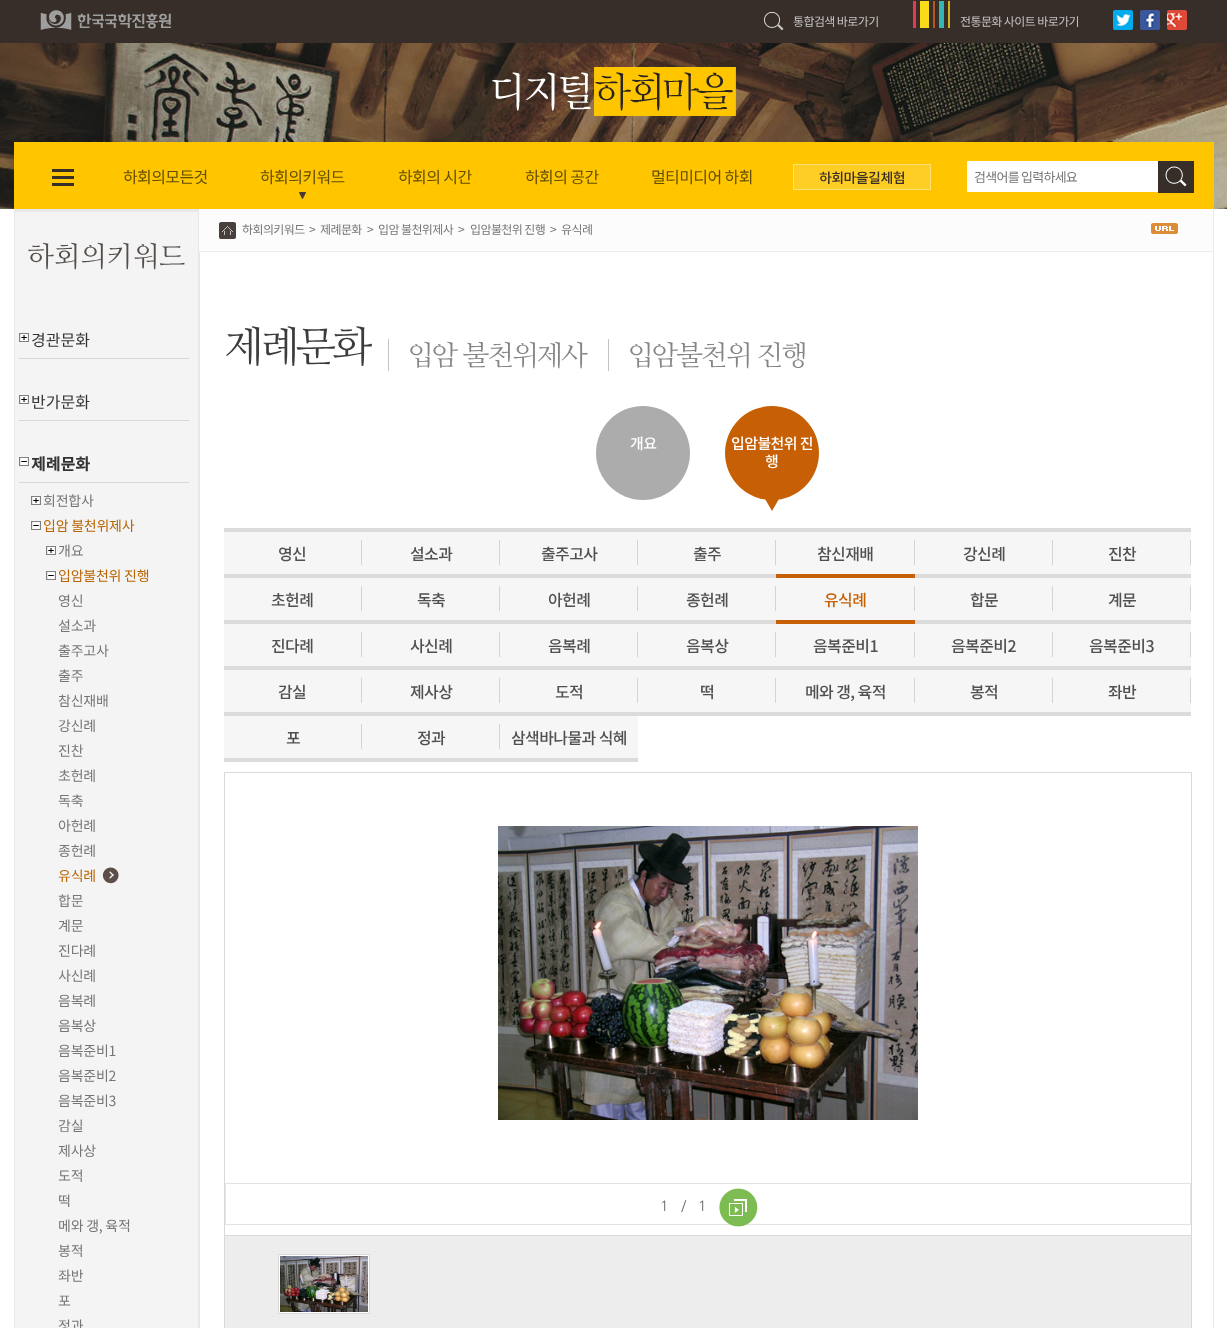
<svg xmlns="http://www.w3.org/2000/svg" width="1227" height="1328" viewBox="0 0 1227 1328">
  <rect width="100%" height="100%" fill="#ffffff"/>
  <rect x="0" y="0" width="1227" height="43" fill="#372d29"/>
  <image x="40" y="10" width="131" height="20" href="img1.png"/>
  <image x="764" y="12" width="20" height="19" href="img2.png"/>
  <text x="793" y="26" font-family="Noto Sans KR" font-size="12" letter-spacing="-0.6" fill="#c4c4c4">통합검색 바로가기</text>
  <image x="913" y="1" width="37" height="27" href="img3.png"/>
  <text x="960" y="26" font-family="Noto Sans KR" font-size="12" letter-spacing="-0.6" fill="#c4c4c4">전통문화 사이트 바로가기</text>
  <image x="1113" y="10" width="20" height="20" href="img4.png"/>
  <image x="1140" y="10" width="20" height="20" href="img5.png"/>
  <image x="1167" y="10" width="20" height="20" href="img6.png"/>
  <image x="0" y="43" width="1227" height="166" href="img7.png"/>
  <image x="492" y="67" width="244" height="49" href="img8.png"/>
  <rect x="14" y="142" width="1200" height="67" fill="#ffc600"/>
  <image x="52" y="169" width="22" height="17" href="img9.png"/>
  <text x="123" y="183" font-family="Noto Sans KR" font-size="16" letter-spacing="-0.6" fill="#634d00">하회의모든것</text>
  <image x="299" y="192" width="7" height="7" href="img10.png"/>
  <text x="260" y="183" font-family="Noto Sans KR" font-size="16" letter-spacing="-0.6" fill="#634d00">하회의키워드</text>
  <text x="398" y="183" font-family="Noto Sans KR" font-size="16" letter-spacing="-0.6" fill="#634d00">하회의 시간</text>
  <text x="525" y="183" font-family="Noto Sans KR" font-size="16" letter-spacing="-0.6" fill="#634d00">하회의 공간</text>
  <text x="651" y="183" font-family="Noto Sans KR" font-size="16" letter-spacing="-0.6" fill="#634d00">멀티미디어 하회</text>
  <rect x="793.5" y="164.5" width="137" height="25" fill="#ffce24" stroke="#ffe178"/>
  <text x="819" y="183" font-family="Noto Sans KR" font-size="14" font-weight="500" letter-spacing="-0.6" fill="#372d29">하회마을길체험</text>
  <rect x="968" y="162" width="190" height="29" fill="#ffffff"/>
  <rect x="967.5" y="161.5" width="194" height="30" fill="none" stroke="#ffffff"/>
  <text x="974" y="182" font-family="Noto Sans KR" font-size="13" letter-spacing="-0.75" fill="#767676">검색어를 입력하세요</text>
  <rect x="1158" y="161" width="36" height="32" fill="#372d29"/>
  <image x="1165" y="166" width="22" height="21" href="img11.png"/>
  <image x="14" y="212" width="186" height="1116" href="img12.png"/>
  <rect x="14" y="209" width="185" height="3" fill="#e8e8e8"/>
  <text x="27" y="266" font-family="NanumMyeongjo" font-size="28" letter-spacing="-0.25" fill="#534c48">하회의키워드</text>
  <image x="19" y="333" width="10" height="9" href="img13.png"/>
  <rect x="19" y="358" width="170" height="1" fill="#d9d9d9"/>
  <text x="31" y="346" font-family="Noto Sans KR" font-size="16" fill="#333333">경관문화</text>
  <image x="19" y="395" width="10" height="9" href="img13.png"/>
  <rect x="19" y="420" width="170" height="1" fill="#d9d9d9"/>
  <text x="31" y="408" font-family="Noto Sans KR" font-size="16" fill="#333333">반가문화</text>
  <image x="19" y="457" width="10" height="9" href="img14.png"/>
  <rect x="19" y="482" width="170" height="1" fill="#d9d9d9"/>
  <text x="31" y="470" font-family="Noto Sans KR" font-size="16" font-weight="bold" fill="#333333">제례문화</text>
  <image x="31" y="496" width="10" height="9" href="img13.png"/>
  <text x="43" y="506" font-family="Noto Sans KR" font-size="14" letter-spacing="-0.25" fill="#767676">회전합사</text>
  <image x="31" y="521" width="10" height="9" href="img14.png"/>
  <text x="43" y="531" font-family="Noto Sans KR" font-size="14" letter-spacing="-0.25" fill="#b86400">입암 불천위제사</text>
  <image x="46" y="546" width="10" height="9" href="img15.png"/>
  <text x="58" y="556" font-family="Noto Sans KR" font-size="14" letter-spacing="-0.25" fill="#767676">개요</text>
  <image x="46" y="571" width="10" height="9" href="img16.png"/>
  <text x="58" y="581" font-family="Noto Sans KR" font-size="14" letter-spacing="-0.25" fill="#b86400">입암불천위 진행</text>
  <text x="58" y="606" font-family="Noto Sans KR" font-size="14" letter-spacing="-0.25" fill="#767676">영신</text>
  <text x="58" y="631" font-family="Noto Sans KR" font-size="14" letter-spacing="-0.25" fill="#767676">설소과</text>
  <text x="58" y="656" font-family="Noto Sans KR" font-size="14" letter-spacing="-0.25" fill="#767676">출주고사</text>
  <text x="58" y="681" font-family="Noto Sans KR" font-size="14" letter-spacing="-0.25" fill="#767676">출주</text>
  <text x="58" y="706" font-family="Noto Sans KR" font-size="14" letter-spacing="-0.25" fill="#767676">참신재배</text>
  <text x="58" y="731" font-family="Noto Sans KR" font-size="14" letter-spacing="-0.25" fill="#767676">강신례</text>
  <text x="58" y="756" font-family="Noto Sans KR" font-size="14" letter-spacing="-0.25" fill="#767676">진찬</text>
  <text x="58" y="781" font-family="Noto Sans KR" font-size="14" letter-spacing="-0.25" fill="#767676">초헌례</text>
  <text x="58" y="806" font-family="Noto Sans KR" font-size="14" letter-spacing="-0.25" fill="#767676">독축</text>
  <text x="58" y="831" font-family="Noto Sans KR" font-size="14" letter-spacing="-0.25" fill="#767676">아헌례</text>
  <text x="58" y="856" font-family="Noto Sans KR" font-size="14" letter-spacing="-0.25" fill="#767676">종헌례</text>
  <image x="102" y="867" width="17" height="17" href="img17.png"/>
  <text x="58" y="881" font-family="Noto Sans KR" font-size="14" letter-spacing="-0.25" fill="#b86400">유식례</text>
  <text x="58" y="906" font-family="Noto Sans KR" font-size="14" letter-spacing="-0.25" fill="#767676">합문</text>
  <text x="58" y="931" font-family="Noto Sans KR" font-size="14" letter-spacing="-0.25" fill="#767676">계문</text>
  <text x="58" y="956" font-family="Noto Sans KR" font-size="14" letter-spacing="-0.25" fill="#767676">진다례</text>
  <text x="58" y="981" font-family="Noto Sans KR" font-size="14" letter-spacing="-0.25" fill="#767676">사신례</text>
  <text x="58" y="1006" font-family="Noto Sans KR" font-size="14" letter-spacing="-0.25" fill="#767676">음복례</text>
  <text x="58" y="1031" font-family="Noto Sans KR" font-size="14" letter-spacing="-0.25" fill="#767676">음복상</text>
  <text x="58" y="1056" font-family="Noto Sans KR" font-size="14" letter-spacing="-0.25" fill="#767676">음복준비1</text>
  <text x="58" y="1081" font-family="Noto Sans KR" font-size="14" letter-spacing="-0.25" fill="#767676">음복준비2</text>
  <text x="58" y="1106" font-family="Noto Sans KR" font-size="14" letter-spacing="-0.25" fill="#767676">음복준비3</text>
  <text x="58" y="1131" font-family="Noto Sans KR" font-size="14" letter-spacing="-0.25" fill="#767676">감실</text>
  <text x="58" y="1156" font-family="Noto Sans KR" font-size="14" letter-spacing="-0.25" fill="#767676">제사상</text>
  <text x="58" y="1181" font-family="Noto Sans KR" font-size="14" letter-spacing="-0.25" fill="#767676">도적</text>
  <text x="58" y="1206" font-family="Noto Sans KR" font-size="14" letter-spacing="-0.25" fill="#767676">떡</text>
  <text x="58" y="1231" font-family="Noto Sans KR" font-size="14" letter-spacing="-0.25" fill="#767676">메와 갱, 육적</text>
  <text x="58" y="1256" font-family="Noto Sans KR" font-size="14" letter-spacing="-0.25" fill="#767676">봉적</text>
  <text x="58" y="1281" font-family="Noto Sans KR" font-size="14" letter-spacing="-0.25" fill="#767676">좌반</text>
  <text x="58" y="1306" font-family="Noto Sans KR" font-size="14" letter-spacing="-0.25" fill="#767676">포</text>
  <text x="58" y="1331" font-family="Noto Sans KR" font-size="14" letter-spacing="-0.25" fill="#767676">정과</text>
  <rect x="1213" y="209" width="1" height="1119" fill="#e9e9e9"/>
  <rect x="199" y="209" width="1014" height="42" fill="#fcfcfc"/>
  <rect x="199" y="251" width="1014" height="1" fill="#ededed"/>
  <image x="219" y="222" width="17" height="17" href="img18.png"/>
  <text x="242" y="234" font-family="Noto Sans KR" font-size="12" letter-spacing="-0.6" fill="#767676">하회의키워드</text>
  <text x="309" y="234" font-family="Noto Sans KR" font-size="12" letter-spacing="-0.6" fill="#767676">&gt;</text>
  <text x="320" y="234" font-family="Noto Sans KR" font-size="12" letter-spacing="-0.6" fill="#767676">제례문화</text>
  <text x="367" y="234" font-family="Noto Sans KR" font-size="12" letter-spacing="-0.6" fill="#767676">&gt;</text>
  <text x="378" y="234" font-family="Noto Sans KR" font-size="12" letter-spacing="-0.6" fill="#767676">입암 불천위제사</text>
  <text x="458" y="234" font-family="Noto Sans KR" font-size="12" letter-spacing="-0.6" fill="#767676">&gt;</text>
  <text x="470" y="234" font-family="Noto Sans KR" font-size="12" letter-spacing="-0.6" fill="#767676">입암불천위 진행</text>
  <text x="550" y="234" font-family="Noto Sans KR" font-size="12" letter-spacing="-0.6" fill="#767676">&gt;</text>
  <text x="561" y="234" font-family="Noto Sans KR" font-size="12" letter-spacing="-0.6" fill="#767676">유식례</text>
  <image x="1151" y="223" width="27" height="11" href="img19.png"/>
  <text x="224" y="361" font-family="NanumMyeongjo" font-size="42" letter-spacing="-4" fill="#3c3c3c">제례문화</text>
  <rect x="388" y="339" width="1" height="32" fill="#c2c2c2"/>
  <text x="407" y="365" font-family="NanumMyeongjo" font-size="28" letter-spacing="-2" fill="#858585">입암 불천위제사</text>
  <rect x="608" y="339" width="1" height="32" fill="#c2c2c2"/>
  <text x="627" y="365" font-family="NanumMyeongjo" font-size="28" letter-spacing="-2" fill="#858585">입암불천위 진행</text>
  <circle cx="643" cy="453" r="47" fill="#acacac"/>
  <text x="630" y="449" font-family="Noto Sans KR" font-size="15" font-weight="500" letter-spacing="-0.6" fill="#ffffff">개요</text>
  <image x="765" y="499" width="14" height="12" href="img20.png"/>
  <circle cx="772" cy="453" r="47" fill="#c76004"/>
  <text x="731" y="449" font-family="Noto Sans KR" font-size="15" font-weight="500" letter-spacing="-0.6" fill="#ffffff">입암불천위 진</text>
  <text x="765" y="467" font-family="Noto Sans KR" font-size="15" font-weight="500" letter-spacing="-0.6" fill="#ffffff">행</text>
  <rect x="224" y="532" width="967" height="42" fill="#f6f6f6"/>
  <rect x="361" y="540" width="1" height="25" fill="#d4d4d4"/>
  <rect x="224" y="528" width="967" height="4" fill="#dbdbdb"/>
  <text x="278" y="560" font-family="Noto Sans KR" font-size="16" font-weight="500" letter-spacing="-0.6" fill="#505050">영신</text>
  <rect x="499" y="540" width="1" height="25" fill="#d4d4d4"/>
  <text x="410" y="560" font-family="Noto Sans KR" font-size="16" font-weight="500" letter-spacing="-0.6" fill="#505050">설소과</text>
  <rect x="637" y="540" width="1" height="25" fill="#d4d4d4"/>
  <text x="541" y="560" font-family="Noto Sans KR" font-size="16" font-weight="500" letter-spacing="-0.6" fill="#505050">출주고사</text>
  <rect x="775" y="540" width="1" height="25" fill="#d4d4d4"/>
  <text x="693" y="560" font-family="Noto Sans KR" font-size="16" font-weight="500" letter-spacing="-0.6" fill="#505050">출주</text>
  <rect x="914" y="540" width="1" height="25" fill="#d4d4d4"/>
  <text x="817" y="560" font-family="Noto Sans KR" font-size="16" font-weight="500" letter-spacing="-0.6" fill="#505050">참신재배</text>
  <rect x="1052" y="540" width="1" height="25" fill="#d4d4d4"/>
  <text x="963" y="560" font-family="Noto Sans KR" font-size="16" font-weight="500" letter-spacing="-0.6" fill="#505050">강신례</text>
  <rect x="1190" y="540" width="1" height="25" fill="#d4d4d4"/>
  <text x="1108" y="560" font-family="Noto Sans KR" font-size="16" font-weight="500" letter-spacing="-0.6" fill="#505050">진찬</text>
  <rect x="224" y="578" width="967" height="42" fill="#f6f6f6"/>
  <rect x="361" y="586" width="1" height="25" fill="#d4d4d4"/>
  <rect x="224" y="574" width="552" height="4" fill="#dbdbdb"/>
  <text x="271" y="606" font-family="Noto Sans KR" font-size="16" font-weight="500" letter-spacing="-0.6" fill="#505050">초헌례</text>
  <rect x="499" y="586" width="1" height="25" fill="#d4d4d4"/>
  <text x="417" y="606" font-family="Noto Sans KR" font-size="16" font-weight="500" letter-spacing="-0.6" fill="#505050">독축</text>
  <rect x="637" y="586" width="1" height="25" fill="#d4d4d4"/>
  <text x="548" y="606" font-family="Noto Sans KR" font-size="16" font-weight="500" letter-spacing="-0.6" fill="#505050">아헌례</text>
  <rect x="775" y="586" width="1" height="25" fill="#d4d4d4"/>
  <text x="686" y="606" font-family="Noto Sans KR" font-size="16" font-weight="500" letter-spacing="-0.6" fill="#505050">종헌례</text>
  <rect x="914" y="586" width="1" height="25" fill="#d4d4d4"/>
  <rect x="776" y="574" width="139" height="4" fill="#c76004"/>
  <rect x="776" y="620" width="139" height="4" fill="#c76004"/>
  <text x="824" y="606" font-family="Noto Sans KR" font-size="16" font-weight="500" letter-spacing="-0.6" fill="#c76004">유식례</text>
  <rect x="1052" y="586" width="1" height="25" fill="#d4d4d4"/>
  <rect x="915" y="574" width="276" height="4" fill="#dbdbdb"/>
  <text x="970" y="606" font-family="Noto Sans KR" font-size="16" font-weight="500" letter-spacing="-0.6" fill="#505050">합문</text>
  <rect x="1190" y="586" width="1" height="25" fill="#d4d4d4"/>
  <text x="1108" y="606" font-family="Noto Sans KR" font-size="16" font-weight="500" letter-spacing="-0.6" fill="#505050">계문</text>
  <rect x="224" y="624" width="967" height="42" fill="#f6f6f6"/>
  <rect x="361" y="632" width="1" height="25" fill="#d4d4d4"/>
  <rect x="224" y="620" width="552" height="4" fill="#dbdbdb"/>
  <text x="271" y="652" font-family="Noto Sans KR" font-size="16" font-weight="500" letter-spacing="-0.6" fill="#505050">진다례</text>
  <rect x="499" y="632" width="1" height="25" fill="#d4d4d4"/>
  <text x="410" y="652" font-family="Noto Sans KR" font-size="16" font-weight="500" letter-spacing="-0.6" fill="#505050">사신례</text>
  <rect x="637" y="632" width="1" height="25" fill="#d4d4d4"/>
  <text x="548" y="652" font-family="Noto Sans KR" font-size="16" font-weight="500" letter-spacing="-0.6" fill="#505050">음복례</text>
  <rect x="775" y="632" width="1" height="25" fill="#d4d4d4"/>
  <text x="686" y="652" font-family="Noto Sans KR" font-size="16" font-weight="500" letter-spacing="-0.6" fill="#505050">음복상</text>
  <rect x="914" y="632" width="1" height="25" fill="#d4d4d4"/>
  <text x="813" y="652" font-family="Noto Sans KR" font-size="16" font-weight="500" letter-spacing="-0.6" fill="#505050">음복준비1</text>
  <rect x="1052" y="632" width="1" height="25" fill="#d4d4d4"/>
  <rect x="915" y="620" width="276" height="4" fill="#dbdbdb"/>
  <text x="951" y="652" font-family="Noto Sans KR" font-size="16" font-weight="500" letter-spacing="-0.6" fill="#505050">음복준비2</text>
  <rect x="1190" y="632" width="1" height="25" fill="#d4d4d4"/>
  <text x="1089" y="652" font-family="Noto Sans KR" font-size="16" font-weight="500" letter-spacing="-0.6" fill="#505050">음복준비3</text>
  <rect x="224" y="670" width="967" height="42" fill="#f6f6f6"/>
  <rect x="361" y="678" width="1" height="25" fill="#d4d4d4"/>
  <rect x="224" y="666" width="967" height="4" fill="#dbdbdb"/>
  <text x="278" y="698" font-family="Noto Sans KR" font-size="16" font-weight="500" letter-spacing="-0.6" fill="#505050">감실</text>
  <rect x="499" y="678" width="1" height="25" fill="#d4d4d4"/>
  <text x="410" y="698" font-family="Noto Sans KR" font-size="16" font-weight="500" letter-spacing="-0.6" fill="#505050">제사상</text>
  <rect x="637" y="678" width="1" height="25" fill="#d4d4d4"/>
  <text x="555" y="698" font-family="Noto Sans KR" font-size="16" font-weight="500" letter-spacing="-0.6" fill="#505050">도적</text>
  <rect x="775" y="678" width="1" height="25" fill="#d4d4d4"/>
  <rect x="638" y="712" width="553" height="4" fill="#dbdbdb"/>
  <text x="700" y="698" font-family="Noto Sans KR" font-size="16" font-weight="500" letter-spacing="-0.6" fill="#505050">떡</text>
  <rect x="914" y="678" width="1" height="25" fill="#d4d4d4"/>
  <text x="805" y="698" font-family="Noto Sans KR" font-size="16" font-weight="500" letter-spacing="-0.6" fill="#505050">메와 갱, 육적</text>
  <rect x="1052" y="678" width="1" height="25" fill="#d4d4d4"/>
  <text x="970" y="698" font-family="Noto Sans KR" font-size="16" font-weight="500" letter-spacing="-0.6" fill="#505050">봉적</text>
  <rect x="1190" y="678" width="1" height="25" fill="#d4d4d4"/>
  <text x="1108" y="698" font-family="Noto Sans KR" font-size="16" font-weight="500" letter-spacing="-0.6" fill="#505050">좌반</text>
  <rect x="224" y="716" width="414" height="42" fill="#f6f6f6"/>
  <rect x="361" y="724" width="1" height="25" fill="#d4d4d4"/>
  <rect x="224" y="712" width="414" height="4" fill="#dbdbdb"/>
  <rect x="224" y="758" width="414" height="4" fill="#dbdbdb"/>
  <text x="286" y="744" font-family="Noto Sans KR" font-size="16" font-weight="500" letter-spacing="-0.6" fill="#505050">포</text>
  <rect x="499" y="724" width="1" height="25" fill="#d4d4d4"/>
  <text x="417" y="744" font-family="Noto Sans KR" font-size="16" font-weight="500" letter-spacing="-0.6" fill="#505050">정과</text>
  <text x="511" y="744" font-family="Noto Sans KR" font-size="16" font-weight="500" letter-spacing="-0.6" fill="#505050">삼색바나물과 식혜</text>
  <rect x="224.5" y="772.5" width="967" height="463" fill="none" stroke="#d9d9d9"/>
  <image x="498" y="826" width="420" height="294" href="img21.png"/>
  <rect x="225.5" y="1183.5" width="965" height="41" fill="none" stroke="#e3e3e3"/>
  <text x="660" y="1211" font-family="NanumGothic" font-size="14" letter-spacing="-0.6" fill="#666666">1</text>
  <text x="681" y="1211" font-family="NanumGothic" font-size="14" letter-spacing="-0.6" fill="#666666">/</text>
  <text x="698" y="1211" font-family="NanumGothic" font-size="14" letter-spacing="-0.6" fill="#666666">1</text>
  <image x="719" y="1188" width="39" height="39" href="img22.png"/>
  <rect x="224.5" y="1235.5" width="967" height="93" fill="#ededed" stroke="#d9d9d9"/>
  <rect x="278.5" y="1254.5" width="91" height="59" fill="#ffffff" stroke="#d8d8d8"/>
  <image x="280" y="1256" width="88" height="56" href="img23.png"/>
</svg>
